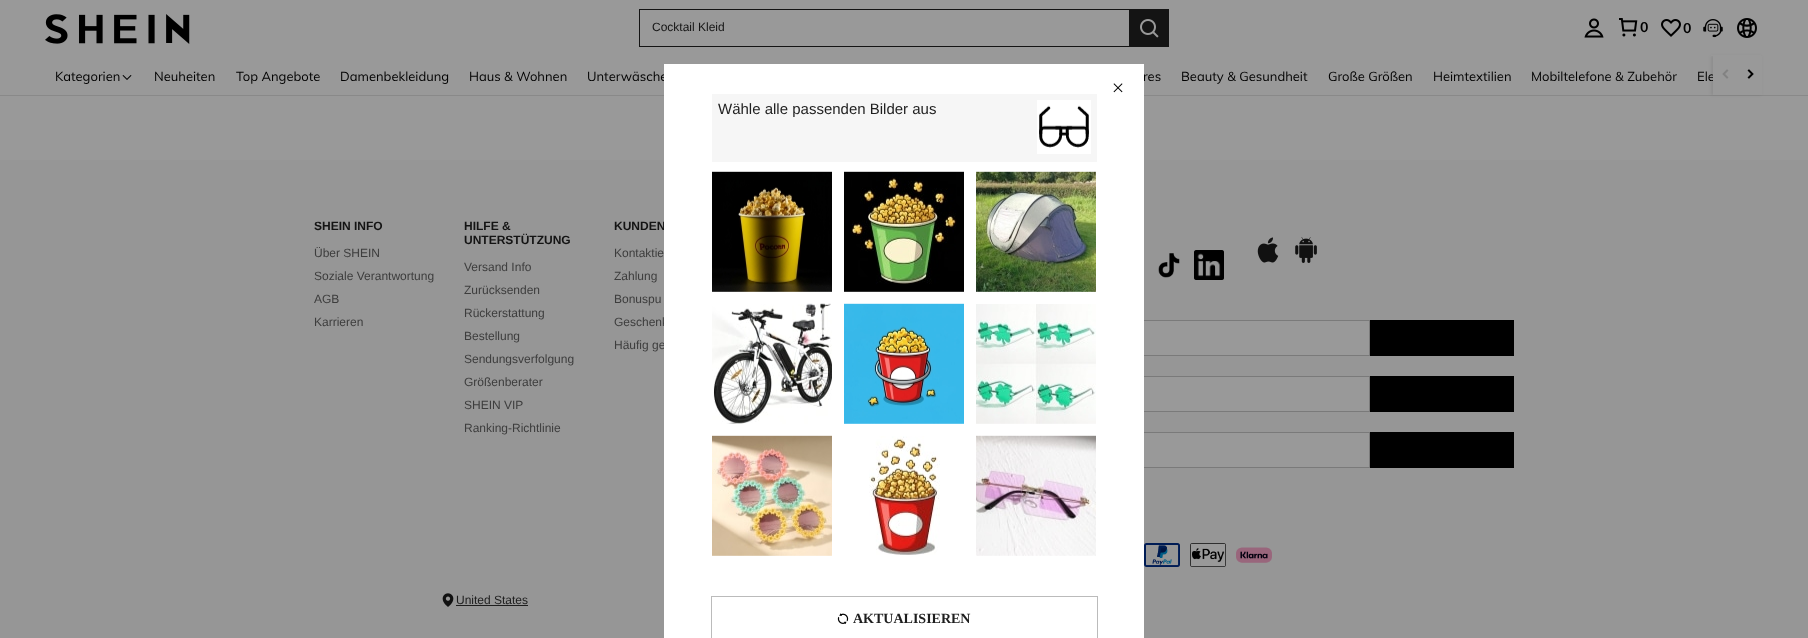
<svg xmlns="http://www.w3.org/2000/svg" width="1808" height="638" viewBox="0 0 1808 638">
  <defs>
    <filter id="blur1" x="-50%" y="-200%" width="200%" height="500%"><feGaussianBlur stdDeviation="1.5"/></filter>
    <filter id="blur2" x="-50%" y="-200%" width="200%" height="500%"><feGaussianBlur stdDeviation="0.5"/></filter>
  </defs>
  <rect width="100%" height="100%" fill="#999999"/>
  <rect x="0" y="95" width="1808" height="1" fill="#898989"/>
  <rect x="1711" y="56" width="50" height="39" fill="#000000" fill-opacity="0.08" filter="url(#blur1)"/>
  <rect x="1711" y="55" width="50" height="1" fill="#999999"/>
  <image x="45" y="14" width="145" height="30" href="img1.png"/>
  <rect x="639" y="9" width="490" height="1" fill="#141414"/>
  <rect x="639" y="46" width="490" height="1" fill="#141414"/>
  <rect x="639" y="9" width="1" height="38" fill="#141414"/>
  <text x="652" y="31" font-family="Liberation Sans" font-size="12" fill="#141414">Cocktail Kleid</text>
  <rect x="1129" y="9" width="40" height="38" fill="#141414"/>
  <image x="1140" y="19" width="19" height="19" href="img2.png"/>
  <image x="1584" y="18" width="20" height="20" href="img3.png"/>
  <image x="1619" y="18" width="19" height="19" href="img4.png"/>
  <text x="1640" y="32" font-family="Muli" font-size="14" font-weight="bold" fill="#000000">0</text>
  <image x="1661" y="19" width="20" height="18" href="img5.png"/>
  <text x="1683" y="33" font-family="Muli" font-size="14" font-weight="bold" fill="#000000">0</text>
  <image x="1703" y="19" width="20" height="19" href="img6.png"/>
  <image x="1737" y="18" width="20" height="20" href="img7.png"/>
  <text x="55" y="81" font-family="Muli" font-size="13" fill="#000000">Kategorien</text>
  <image x="122" y="75" width="10" height="5" href="img8.png"/>
  <text x="154" y="81" font-family="Muli" font-size="13" fill="#000000">Neuheiten</text>
  <text x="236" y="81" font-family="Muli" font-size="13" fill="#000000">Top Angebote</text>
  <text x="340" y="81" font-family="Muli" font-size="13" fill="#000000">Damenbekleidung</text>
  <text x="469" y="81" font-family="Muli" font-size="13" fill="#000000">Haus &amp; Wohnen</text>
  <text x="587" y="81" font-family="Muli" font-size="13" fill="#000000">Unterwäsche</text>
  <text x="1143" y="81" font-family="Muli" font-size="13" fill="#000000">res</text>
  <text x="1181" y="81" font-family="Muli" font-size="13" fill="#000000">Beauty &amp; Gesundheit</text>
  <text x="1328" y="81" font-family="Muli" font-size="13" fill="#000000">Große Größen</text>
  <text x="1433" y="81" font-family="Muli" font-size="13" fill="#000000">Heimtextilien</text>
  <text x="1531" y="81" font-family="Muli" font-size="13" fill="#000000">Mobiltelefone &amp; Zubehör</text>
  <text x="1697" y="81" font-family="Muli" font-size="13" fill="#000000">Ele</text>
  <rect x="1713" y="56" width="49" height="39" fill="#999999"/>
  <image x="1722" y="69" width="7" height="10" href="img9.png"/>
  <image x="1747" y="69" width="7" height="10" href="img10.png"/>
  <rect x="0" y="160" width="1808" height="478" fill="#969696"/>
  <text x="314" y="230" font-family="Liberation Sans" font-size="12" font-weight="bold" fill="#141414">SHEIN INFO</text>
  <text x="314" y="257" font-family="Liberation Sans" font-size="12" fill="#3d3d3d">Über SHEIN</text>
  <text x="314" y="280" font-family="Liberation Sans" font-size="12" fill="#3d3d3d">Soziale Verantwortung</text>
  <text x="314" y="303" font-family="Liberation Sans" font-size="12" fill="#3d3d3d">AGB</text>
  <text x="314" y="326" font-family="Liberation Sans" font-size="12" fill="#3d3d3d">Karrieren</text>
  <text x="464" y="230" font-family="Liberation Sans" font-size="12" font-weight="bold" fill="#141414">HILFE &amp;</text>
  <text x="464" y="244" font-family="Liberation Sans" font-size="12" font-weight="bold" fill="#141414">UNTERSTÜTZUNG</text>
  <text x="464" y="271" font-family="Liberation Sans" font-size="12" fill="#3d3d3d">Versand Info</text>
  <text x="464" y="294" font-family="Liberation Sans" font-size="12" fill="#3d3d3d">Zurücksenden</text>
  <text x="464" y="317" font-family="Liberation Sans" font-size="12" fill="#3d3d3d">Rückerstattung</text>
  <text x="464" y="340" font-family="Liberation Sans" font-size="12" fill="#3d3d3d">Bestellung</text>
  <text x="464" y="363" font-family="Liberation Sans" font-size="12" fill="#3d3d3d">Sendungsverfolgung</text>
  <text x="464" y="386" font-family="Liberation Sans" font-size="12" fill="#3d3d3d">Größenberater</text>
  <text x="464" y="409" font-family="Liberation Sans" font-size="12" fill="#3d3d3d">SHEIN VIP</text>
  <text x="464" y="432" font-family="Liberation Sans" font-size="12" fill="#3d3d3d">Ranking-Richtlinie</text>
  <text x="614" y="230" font-family="Liberation Sans" font-size="12" font-weight="bold" fill="#141414">KUNDEN</text>
  <text x="614" y="257" font-family="Liberation Sans" font-size="12" fill="#3d3d3d">Kontaktie</text>
  <text x="614" y="280" font-family="Liberation Sans" font-size="12" fill="#3d3d3d">Zahlung</text>
  <text x="614" y="303" font-family="Liberation Sans" font-size="12" fill="#3d3d3d">Bonuspu</text>
  <text x="614" y="326" font-family="Liberation Sans" font-size="12" fill="#3d3d3d">Geschenk</text>
  <text x="614" y="349" font-family="Liberation Sans" font-size="12" fill="#3d3d3d">Häufig ge</text>
  <image x="1158" y="253" width="22" height="25" href="img11.png"/>
  <image x="1194" y="250" width="30" height="30" href="img12.png"/>
  <image x="1257" y="237" width="22" height="26" href="img13.png"/>
  <image x="1295" y="237" width="22" height="26" href="img14.png"/>
  <rect x="1144" y="321" width="225" height="34" fill="#999999"/>
  <rect x="914.5" y="320.5" width="455" height="35" fill="none" stroke="#7a7a7a"/>
  <rect x="1370" y="320" width="144" height="36" fill="#000000"/>
  <rect x="1144" y="377" width="225" height="34" fill="#999999"/>
  <rect x="994.5" y="376.5" width="375" height="35" fill="none" stroke="#7a7a7a"/>
  <rect x="1370" y="376" width="144" height="36" fill="#000000"/>
  <rect x="1144" y="433" width="225" height="34" fill="#999999"/>
  <rect x="994.5" y="432.5" width="375" height="35" fill="none" stroke="#7a7a7a"/>
  <rect x="1370" y="432" width="144" height="36" fill="#000000"/>
  <image x="1144" y="543" width="36" height="24" href="img15.png"/>
  <image x="1190" y="543" width="36" height="24" href="img16.png"/>
  <image x="1236" y="547" width="36" height="16" href="img17.png"/>
  <image x="442" y="593" width="12" height="14" href="img18.png"/>
  <text x="456" y="604" font-family="Liberation Sans" font-size="12" fill="#1e1e1e">United States</text>
  <rect x="456" y="605" width="72" height="1" fill="#1e1e1e"/>
  <rect x="664" y="64" width="480" height="510" fill="#000000" fill-opacity="0.3" filter="url(#blur2)"/>
  <rect x="664" y="64" width="480" height="574" fill="#ffffff"/>
  <image x="1113" y="83" width="10" height="10" href="img19.png"/>
  <rect x="712" y="94" width="385" height="68" fill="#f6f6f6"/>
  <text x="718" y="114" font-family="Liberation Sans" font-size="15" fill="#1e1e1e">Wähle alle passenden Bilder aus</text>
  <rect x="1037" y="100" width="54" height="54" fill="#ffffff"/>
  <image x="1039" y="105" width="50" height="43" href="img20.png"/>
  <image x="712" y="171" width="120" height="121" href="img21.png"/>
  <image x="844" y="171" width="120" height="121" href="img22.png"/>
  <image x="976" y="171" width="120" height="121" href="img23.png"/>
  <image x="712" y="303" width="120" height="121" href="img24.png"/>
  <image x="844" y="303" width="120" height="121" href="img25.png"/>
  <image x="976" y="304" width="120" height="120" href="img26.png"/>
  <image x="712" y="435" width="120" height="121" href="img27.png"/>
  <image x="869" y="436" width="71" height="119" href="img28.png"/>
  <image x="976" y="435" width="120" height="121" href="img29.png"/>
  <rect x="711.5" y="596.5" width="386" height="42" fill="none" stroke="#bbbbbb"/>
  <image x="837" y="613" width="12" height="11" href="img30.png"/>
  <text x="853" y="623" font-family="Liberation Serif" font-size="14" font-weight="bold" fill="#1e1e1e">AKTUALISIEREN</text>
</svg>
